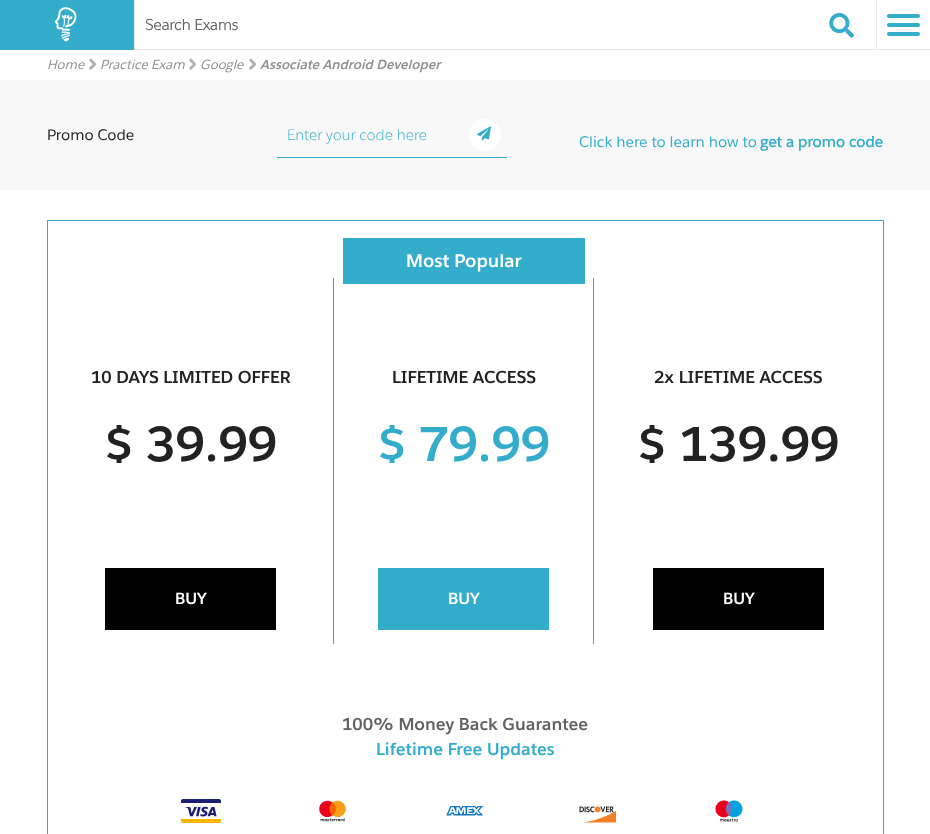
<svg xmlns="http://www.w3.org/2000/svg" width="930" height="834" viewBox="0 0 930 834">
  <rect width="100%" height="100%" fill="#ffffff"/>
  <rect x="877" y="49" width="53" height="1" fill="#e6e9ed"/>
  <rect x="0" y="0" width="134" height="50" fill="#33adcb"/>
  <image x="55" y="7" width="22" height="35" href="img1.png"/>
  <rect x="876" y="0" width="1" height="50" fill="#e6e9ed"/>
  <rect x="134" y="49" width="743" height="1" fill="#e6e9ed"/>
  <rect x="134" y="0" width="1" height="50" fill="#e6e9ed"/>
  <text x="145" y="30" font-family="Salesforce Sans" font-size="15" font-weight="bold" fill="#626262">Search Exams</text>
  <image x="829" y="13" width="25" height="25" href="img2.png"/>
  <rect x="887" y="14" width="33" height="4" rx="2" fill="#33adcb"/>
  <rect x="887" y="23" width="33" height="4" rx="2" fill="#33adcb"/>
  <rect x="887" y="32" width="33" height="4" rx="2" fill="#33adcb"/>
  <text x="47" y="69" font-family="SF" font-size="13" font-style="italic" fill="#919191">Home</text>
  <image x="89" y="58" width="7" height="12" href="img3.png"/>
  <text x="100" y="69" font-family="SF" font-size="13" font-style="italic" fill="#919191">Practice Exam</text>
  <image x="189" y="58" width="7" height="12" href="img3.png"/>
  <text x="200" y="69" font-family="SF" font-size="13" font-style="italic" fill="#919191">Google</text>
  <image x="249" y="58" width="7" height="12" href="img4.png"/>
  <text x="260" y="69" font-family="SF" font-size="13" font-weight="bold" font-style="italic" fill="#919191">Associate Android Developer</text>
  <rect x="0" y="80" width="930" height="110" fill="#f8f8f8"/>
  <text x="47" y="140" font-family="SF" font-size="15" fill="#222222">Promo Code</text>
  <rect x="277" y="157" width="230" height="1" fill="#33adcb"/>
  <text x="287" y="140" font-family="Salesforce Sans" font-size="15" font-weight="300" fill="#33adcb">Enter your code here</text>
  <circle cx="485" cy="135" r="16" fill="#ffffff"/>
  <image x="477" y="126" width="14" height="15" href="img5.png"/>
  <text x="579" y="147" font-family="SF" font-size="15" fill="#33adcb">Click here to learn how to</text>
  <text x="760" y="147" font-family="'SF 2'" font-size="15" font-weight="bold" fill="#33adcb">get a promo code</text>
  <rect x="47" y="220" width="837" height="1" fill="#33adcb"/>
  <rect x="883" y="220" width="1" height="614" fill="#33adcb"/>
  <rect x="47" y="220" width="1" height="614" fill="#33adcb"/>
  <text x="91" y="383" font-family="SF" font-size="17" font-weight="bold" fill="#222222">10 DAYS LIMITED OFFER</text>
  <text x="104" y="461" font-family="SF" font-size="48" font-weight="bold" fill="#222222">$ 39.99</text>
  <rect x="105" y="568" width="171" height="62" fill="#000000"/>
  <text x="175" y="604" font-family="SF" font-size="16" font-weight="bold" fill="#ffffff">BUY</text>
  <rect x="333" y="278" width="1" height="366" fill="#33adcb"/>
  <rect x="343" y="238" width="242" height="46" fill="#33adcb"/>
  <text x="406" y="267" font-family="SF" font-size="18" font-weight="bold" fill="#ffffff">Most Popular</text>
  <text x="392" y="383" font-family="SF" font-size="17" font-weight="bold" fill="#222222">LIFETIME ACCESS</text>
  <text x="377" y="461" font-family="SF" font-size="48" font-weight="bold" fill="#33adcb">$ 79.99</text>
  <rect x="378" y="568" width="171" height="62" fill="#33adcb"/>
  <text x="448" y="604" font-family="SF" font-size="16" font-weight="bold" fill="#ffffff">BUY</text>
  <rect x="593" y="278" width="1" height="366" fill="#33adcb"/>
  <text x="654" y="383" font-family="SF" font-size="17" font-weight="bold" fill="#222222">2x LIFETIME ACCESS</text>
  <text x="637" y="461" font-family="SF" font-size="48" font-weight="bold" fill="#222222">$ 139.99</text>
  <rect x="653" y="568" width="171" height="62" fill="#000000"/>
  <text x="723" y="604" font-family="SF" font-size="16" font-weight="bold" fill="#ffffff">BUY</text>
  <text x="342" y="730" font-family="SF" font-size="17" font-weight="bold" fill="#626262">100% Money Back Guarantee</text>
  <text x="376" y="755" font-family="SF" font-size="17" font-weight="bold" fill="#33adcb">Lifetime Free Updates</text>
  <image x="181" y="799" width="40" height="24" href="img6.png"/>
  <image x="319" y="800" width="27" height="22" href="img7.png"/>
  <image x="446" y="806" width="38" height="10" href="img8.png"/>
  <image x="579" y="806" width="37" height="17" href="img9.png"/>
  <image x="715" y="800" width="28" height="22" href="img10.png"/>
</svg>
